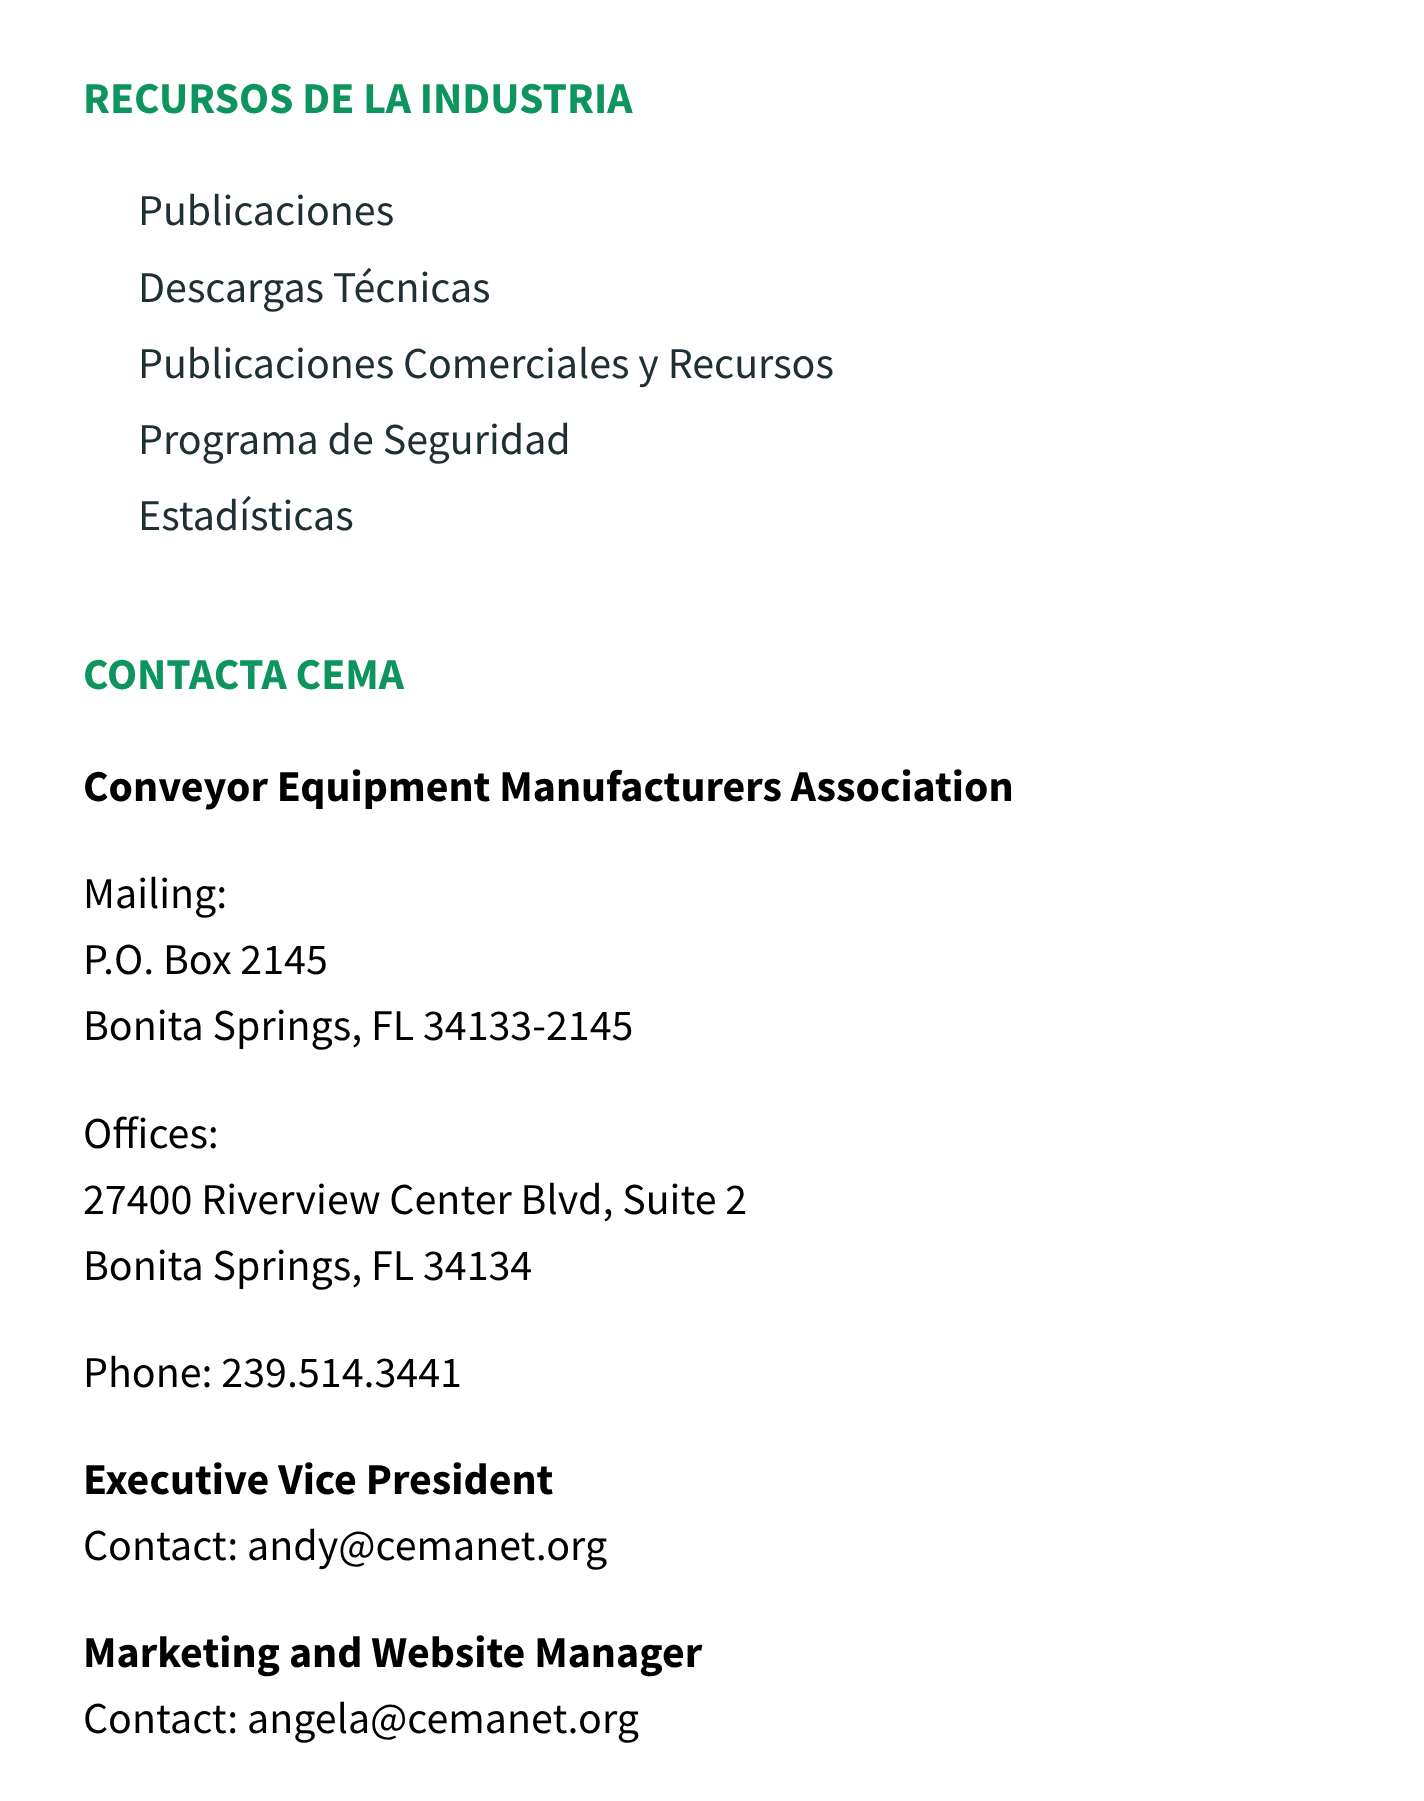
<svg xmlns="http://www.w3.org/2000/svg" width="1424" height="1801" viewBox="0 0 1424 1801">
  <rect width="100%" height="100%" fill="#ffffff"/>
  <text x="83" y="113" font-family="Source Sans Pro" font-size="44" font-weight="bold" fill="#0e955e">RECURSOS DE LA INDUSTRIA</text>
  <text x="138" y="225" font-family="Source Sans Pro" font-size="44" fill="#202f33">Publicaciones</text>
  <text x="138" y="302" font-family="Source Sans Pro" font-size="44" fill="#202f33">Descargas Técnicas</text>
  <text x="138" y="378" font-family="Source Sans Pro" font-size="44" fill="#202f33">Publicaciones Comerciales y Recursos</text>
  <text x="138" y="454" font-family="Source Sans Pro" font-size="44" fill="#202f33">Programa de Seguridad</text>
  <text x="138" y="530" font-family="Source Sans Pro" font-size="44" fill="#202f33">Estadísticas</text>
  <text x="83" y="689" font-family="Source Sans Pro" font-size="44" font-weight="bold" fill="#0e955e">CONTACTA CEMA</text>
  <text x="83" y="801" font-family="Source Sans Pro" font-size="44" font-weight="bold" fill="#000000">Conveyor Equipment Manufacturers Association</text>
  <text x="83" y="908" font-family="Source Sans Pro" font-size="44" fill="#000000">Mailing:</text>
  <text x="83" y="974" font-family="Source Sans Pro" font-size="44" fill="#000000">P.O. Box 2145</text>
  <text x="83" y="1040" font-family="Source Sans Pro" font-size="44" fill="#000000">Bonita Springs, FL 34133-2145</text>
  <text x="83" y="1148" font-family="Source Sans Pro" font-size="44" fill="#000000">Offices:</text>
  <text x="83" y="1214" font-family="Source Sans Pro" font-size="44" fill="#000000">27400 Riverview Center Blvd, Suite 2</text>
  <text x="83" y="1280" font-family="Source Sans Pro" font-size="44" fill="#000000">Bonita Springs, FL 34134</text>
  <text x="83" y="1387" font-family="Source Sans Pro" font-size="44" fill="#000000">Phone: 239.514.3441</text>
  <text x="83" y="1494" font-family="Source Sans Pro" font-size="44" font-weight="bold" fill="#000000">Executive Vice President</text>
  <text x="83" y="1560" font-family="Source Sans Pro" font-size="44" fill="#000000">Contact: andy@cemanet.org</text>
  <text x="83" y="1667" font-family="Source Sans Pro" font-size="44" font-weight="bold" fill="#000000">Marketing and Website Manager</text>
  <text x="83" y="1733" font-family="Source Sans Pro" font-size="44" fill="#000000">Contact: angela@cemanet.org</text>
</svg>
